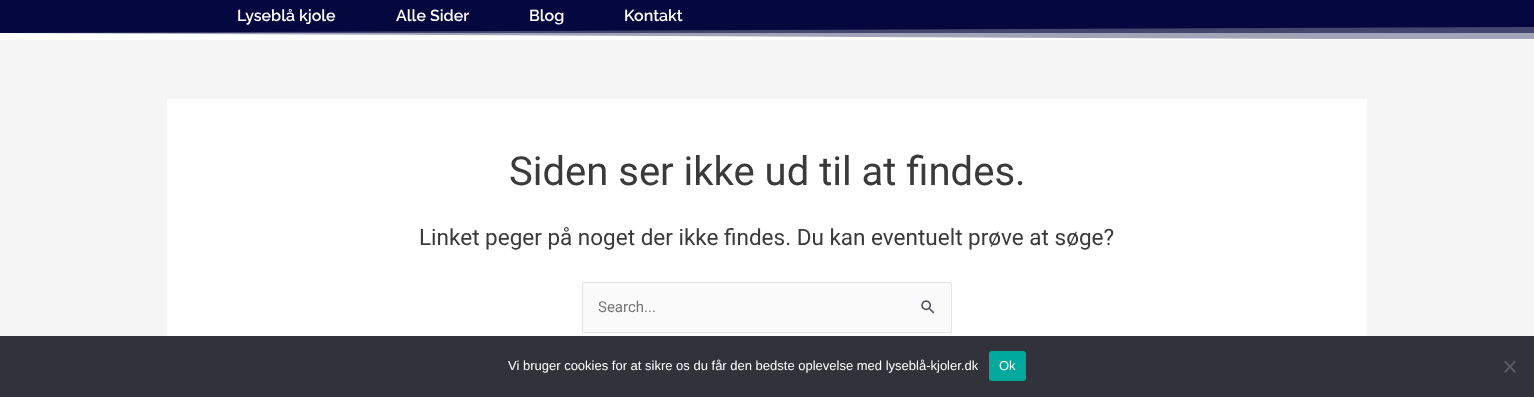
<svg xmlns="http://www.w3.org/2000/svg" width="1534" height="397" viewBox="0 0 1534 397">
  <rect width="100%" height="100%" fill="#f5f5f5"/>
  <rect x="1330" y="39" width="204" height="1" fill="#fafafa"/>
  <rect x="0" y="0" width="1534" height="33" fill="#05083e"/>
  <rect x="13" y="33" width="1521" height="6" fill="#82849f"/>
  <text x="237" y="21" font-family="Raleway" font-size="16" font-weight="600" fill="#ffffff">Lyseblå kjole</text>
  <text x="396" y="21" font-family="Raleway" font-size="16" font-weight="600" fill="#ffffff">Alle Sider</text>
  <text x="529" y="21" font-family="Raleway" font-size="16" font-weight="600" fill="#ffffff">Blog</text>
  <text x="624" y="21" font-family="Raleway" font-size="16" font-weight="600" fill="#ffffff">Kontakt</text>
  <path d="M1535 40H-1V33Z" fill="#ffffff"/>
  <path d="M-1 40H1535V27L-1 33Z" fill="#ffffff" fill-opacity="0.25"/>
  <rect x="167" y="99" width="1200" height="237" fill="#ffffff"/>
  <text x="509" y="185" font-family="Roboto" font-size="40" fill="#3a3a3a">Siden ser ikke ud til at findes.</text>
  <text x="419" y="245" font-family="Roboto" font-size="22.5" fill="#3a3a3a">Linket peger på noget der ikke findes. Du kan eventuelt prøve at søge?</text>
  <rect x="582.5" y="282.5" width="369" height="50" rx="1.5" fill="#fafafa" stroke="#e5e5e5"/>
  <text x="598" y="312" font-family="Roboto" font-size="15" fill="#757575">Search...</text>
  <image x="921" y="300" width="14" height="14" href="img1.png"/>
  <rect x="0" y="336" width="1534" height="61" fill="#32323a"/>
  <text x="508" y="370" font-family="Liberation Sans" font-size="13" fill="#ffffff">Vi bruger cookies for at sikre os du får den bedste oplevelse med lyseblå-kjoler.dk</text>
  <rect x="989" y="351" width="37" height="30" rx="3" fill="#00a99d"/>
  <text x="999" y="370" font-family="Liberation Sans" font-size="13" fill="#ffffff">Ok</text>
  <path d="M1514.5 360.5L1516 362L1505.5 373L1504 371.5Z" fill="#59595d"/>
  <path d="M1504 362L1505.5 360.5L1516 371.5L1514.5 373Z" fill="#59595d"/>
</svg>
